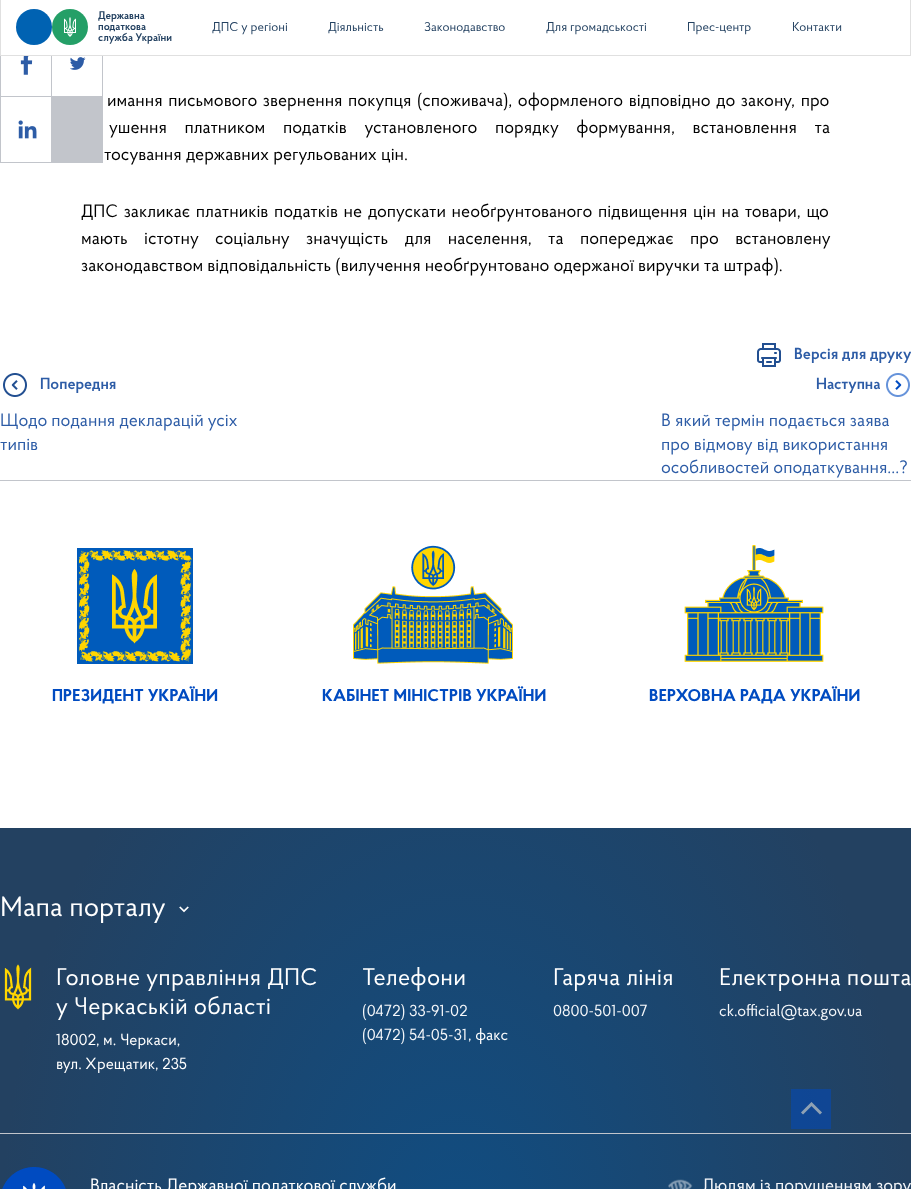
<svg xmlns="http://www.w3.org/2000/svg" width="911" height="1189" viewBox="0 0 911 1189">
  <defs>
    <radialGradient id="g1" gradientUnits="userSpaceOnUse" cx="0" cy="0" r="1" gradientTransform="matrix(456 0 0 674 456 1249)"><stop offset="0" stop-color="#104d82"/><stop offset="1" stop-color="#234161"/></radialGradient>
  </defs>
  <rect width="100%" height="100%" fill="#ffffff"/>
  <rect x="0.5" y="-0.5" width="910" height="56" fill="none" stroke="#e0e0e0"/>
  <circle cx="34" cy="27" r="18" fill="#0062b2"/>
  <circle cx="70" cy="27" r="18" fill="#249f67"/>
  <image x="64" y="17" width="12" height="20" href="img1.png"/>
  <text x="98" y="19" font-family="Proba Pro" font-size="11" font-weight="600" fill="#234161">Державна</text>
  <text x="98" y="30" font-family="Proba Pro" font-size="11" font-weight="600" fill="#234161">податкова</text>
  <text x="98" y="41" font-family="Proba Pro" font-size="11" font-weight="600" fill="#234161">служба України</text>
  <text x="212" y="31" font-family="Proba Pro" font-size="12.75" fill="#234161">ДПС у регіоні</text>
  <text x="328" y="31" font-family="Proba Pro" font-size="12.75" fill="#234161">Діяльність</text>
  <text x="424" y="31" font-family="Proba Pro" font-size="12.75" fill="#234161">Законодавство</text>
  <text x="546" y="31" font-family="Proba Pro" font-size="12.75" fill="#234161">Для громадськості</text>
  <text x="687" y="31" font-family="Proba Pro" font-size="12.75" fill="#234161">Прес-центр</text>
  <text x="792" y="31" font-family="Proba Pro" font-size="12.75" fill="#234161">Контакти</text>
  <rect x="0" y="56" width="103" height="107" fill="#c2c5cb"/>
  <rect x="1" y="56" width="50" height="40" fill="#ffffff"/>
  <image x="20" y="56" width="13" height="19" href="img2.png"/>
  <rect x="52" y="56" width="50" height="40" fill="#ffffff"/>
  <image x="70" y="57" width="16" height="13" href="img3.png"/>
  <rect x="1" y="97" width="50" height="65" fill="#ffffff"/>
  <image x="18" y="120" width="19" height="19" href="img4.png"/>
  <text x="107" y="106" word-spacing="1.5" font-family="Proba Pro" font-size="17.9" fill="#000000">имання письмового звернення покупця (споживача), оформленого відповідно до закону, про</text>
  <text x="109" y="133" word-spacing="13.5" font-family="Proba Pro" font-size="17.9" fill="#000000">ушення платником податків установленого порядку формування, встановлення та</text>
  <text x="104" y="160" font-family="Proba Pro" font-size="17.9" fill="#000000">тосування державних регульованих цін.</text>
  <text x="81" y="217" word-spacing="1.5" font-family="Proba Pro" font-size="17.9" fill="#000000">ДПС закликає платників податків не допускати необґрунтованого підвищення цін на товари, що</text>
  <text x="81" y="244" word-spacing="12.25" font-family="Proba Pro" font-size="17.9" fill="#000000">мають істотну соціальну значущість для населення, та попереджає про встановлену</text>
  <text x="81" y="271" font-family="Proba Pro" font-size="17.9" fill="#000000">законодавством відповідальність (вилучення необґрунтовано одержаної виручки та штраф).</text>
  <image x="757" y="343" width="24" height="24" href="img5.png"/>
  <text x="794" y="359" font-family="Proba Pro" font-size="16" font-weight="600" fill="#2d5ca6">Версія для друку</text>
  <image x="3" y="373" width="24" height="24" href="img6.png"/>
  <text x="40" y="389" font-family="Proba Pro" font-size="16" font-weight="600" fill="#2d5ca6">Попередня</text>
  <text x="0" y="426" font-family="Proba Pro" font-size="17.9" fill="#2d5ca6">Щодо подання декларацій усіх</text>
  <text x="0" y="450" font-family="Proba Pro" font-size="17.9" fill="#2d5ca6">типів</text>
  <text x="816" y="389" font-family="Proba Pro" font-size="16" font-weight="600" fill="#2d5ca6">Наступна</text>
  <image x="886" y="373" width="24" height="24" href="img7.png"/>
  <text x="661" y="426" font-family="Proba Pro" font-size="17.9" fill="#2d5ca6">В який термін подається заява</text>
  <text x="661" y="450" font-family="Proba Pro" font-size="17.9" fill="#2d5ca6">про відмову від використання</text>
  <text x="661" y="473" font-family="Proba Pro" font-size="17.9" fill="#2d5ca6">особливостей оподаткування...?</text>
  <rect x="0" y="480" width="911" height="1" fill="#c2c5cb"/>
  <image x="77" y="548" width="116" height="116" href="img8.png"/>
  <text x="52" y="701" font-family="Proba Pro" font-size="17" font-weight="bold" letter-spacing="0.2" fill="#004bc1">ПРЕЗИДЕНТ УКРАЇНИ</text>
  <image x="353" y="545" width="160" height="119" href="img9.png"/>
  <text x="322" y="701" font-family="Proba Pro" font-size="17" font-weight="bold" letter-spacing="0.2" fill="#004bc1">КАБІНЕТ МІНІСТРІВ УКРАЇНИ</text>
  <image x="684" y="545" width="140" height="117" href="img10.png"/>
  <text x="649" y="701" font-family="Proba Pro" font-size="17" font-weight="bold" letter-spacing="0.2" fill="#004bc1">ВЕРХОВНА РАДА УКРАЇНИ</text>
  <rect x="0" y="828" width="911" height="361" fill="url(#g1)"/>
  <rect x="0" y="1133" width="911" height="1" fill="#c2c5cb"/>
  <text x="0" y="916" font-family="Proba Pro" font-size="28" fill="#ffffff">Мапа порталу</text>
  <text x="177" y="905" transform="rotate(90 177 905)" font-family="Proba Pro" font-size="28" fill="#ffffff">›</text>
  <image x="4" y="964" width="28" height="46" href="img11.png"/>
  <text x="56" y="985" font-family="Proba Pro" font-size="24" letter-spacing="0.25" fill="#ffffff">Головне управління ДПС</text>
  <text x="56" y="1014" font-family="Proba Pro" font-size="24" letter-spacing="0.25" fill="#ffffff">у Черкаській області</text>
  <text x="56" y="1045" font-family="Proba Pro" font-size="16" fill="#ffffff">18002, м. Черкаси,</text>
  <text x="56" y="1069" font-family="Proba Pro" font-size="16" fill="#ffffff">вул. Хрещатик, 235</text>
  <text x="362" y="985" font-family="Proba Pro" font-size="24" letter-spacing="0.25" fill="#ffffff">Телефони</text>
  <text x="362" y="1016" font-family="Proba Pro" font-size="16" fill="#f5f7fa">(0472) 33-91-02</text>
  <text x="362" y="1040" font-family="Proba Pro" font-size="16" fill="#f5f7fa">(0472) 54-05-31</text>
  <text x="468" y="1040" font-family="Proba Pro" font-size="16" fill="#ffffff">, факс</text>
  <text x="553" y="985" font-family="Proba Pro" font-size="24" letter-spacing="0.25" fill="#ffffff">Гаряча лінія</text>
  <text x="553" y="1016" font-family="Proba Pro" font-size="16" fill="#f5f7fa">0800-501-007</text>
  <text x="719" y="985" font-family="Proba Pro" font-size="24" letter-spacing="0.25" fill="#ffffff">Електронна пошта</text>
  <text x="719" y="1016" font-family="Proba Pro" font-size="16" fill="#f5f7fa">ck.official@tax.gov.ua</text>
  <image x="2" y="1167" width="64" height="22" href="img12.png"/>
  <text x="90" y="1191" font-family="Proba Pro" font-size="17.9" fill="#ffffff">Власність Державної податкової служби</text>
  <image x="668" y="1179" width="25" height="10" href="img13.png"/>
  <text x="702" y="1191" font-family="Proba Pro" font-size="17.9" fill="#f5f7fa">Людям із порушенням зору</text>
  <image x="791" y="1089" width="40" height="40" href="img14.png"/>
</svg>
